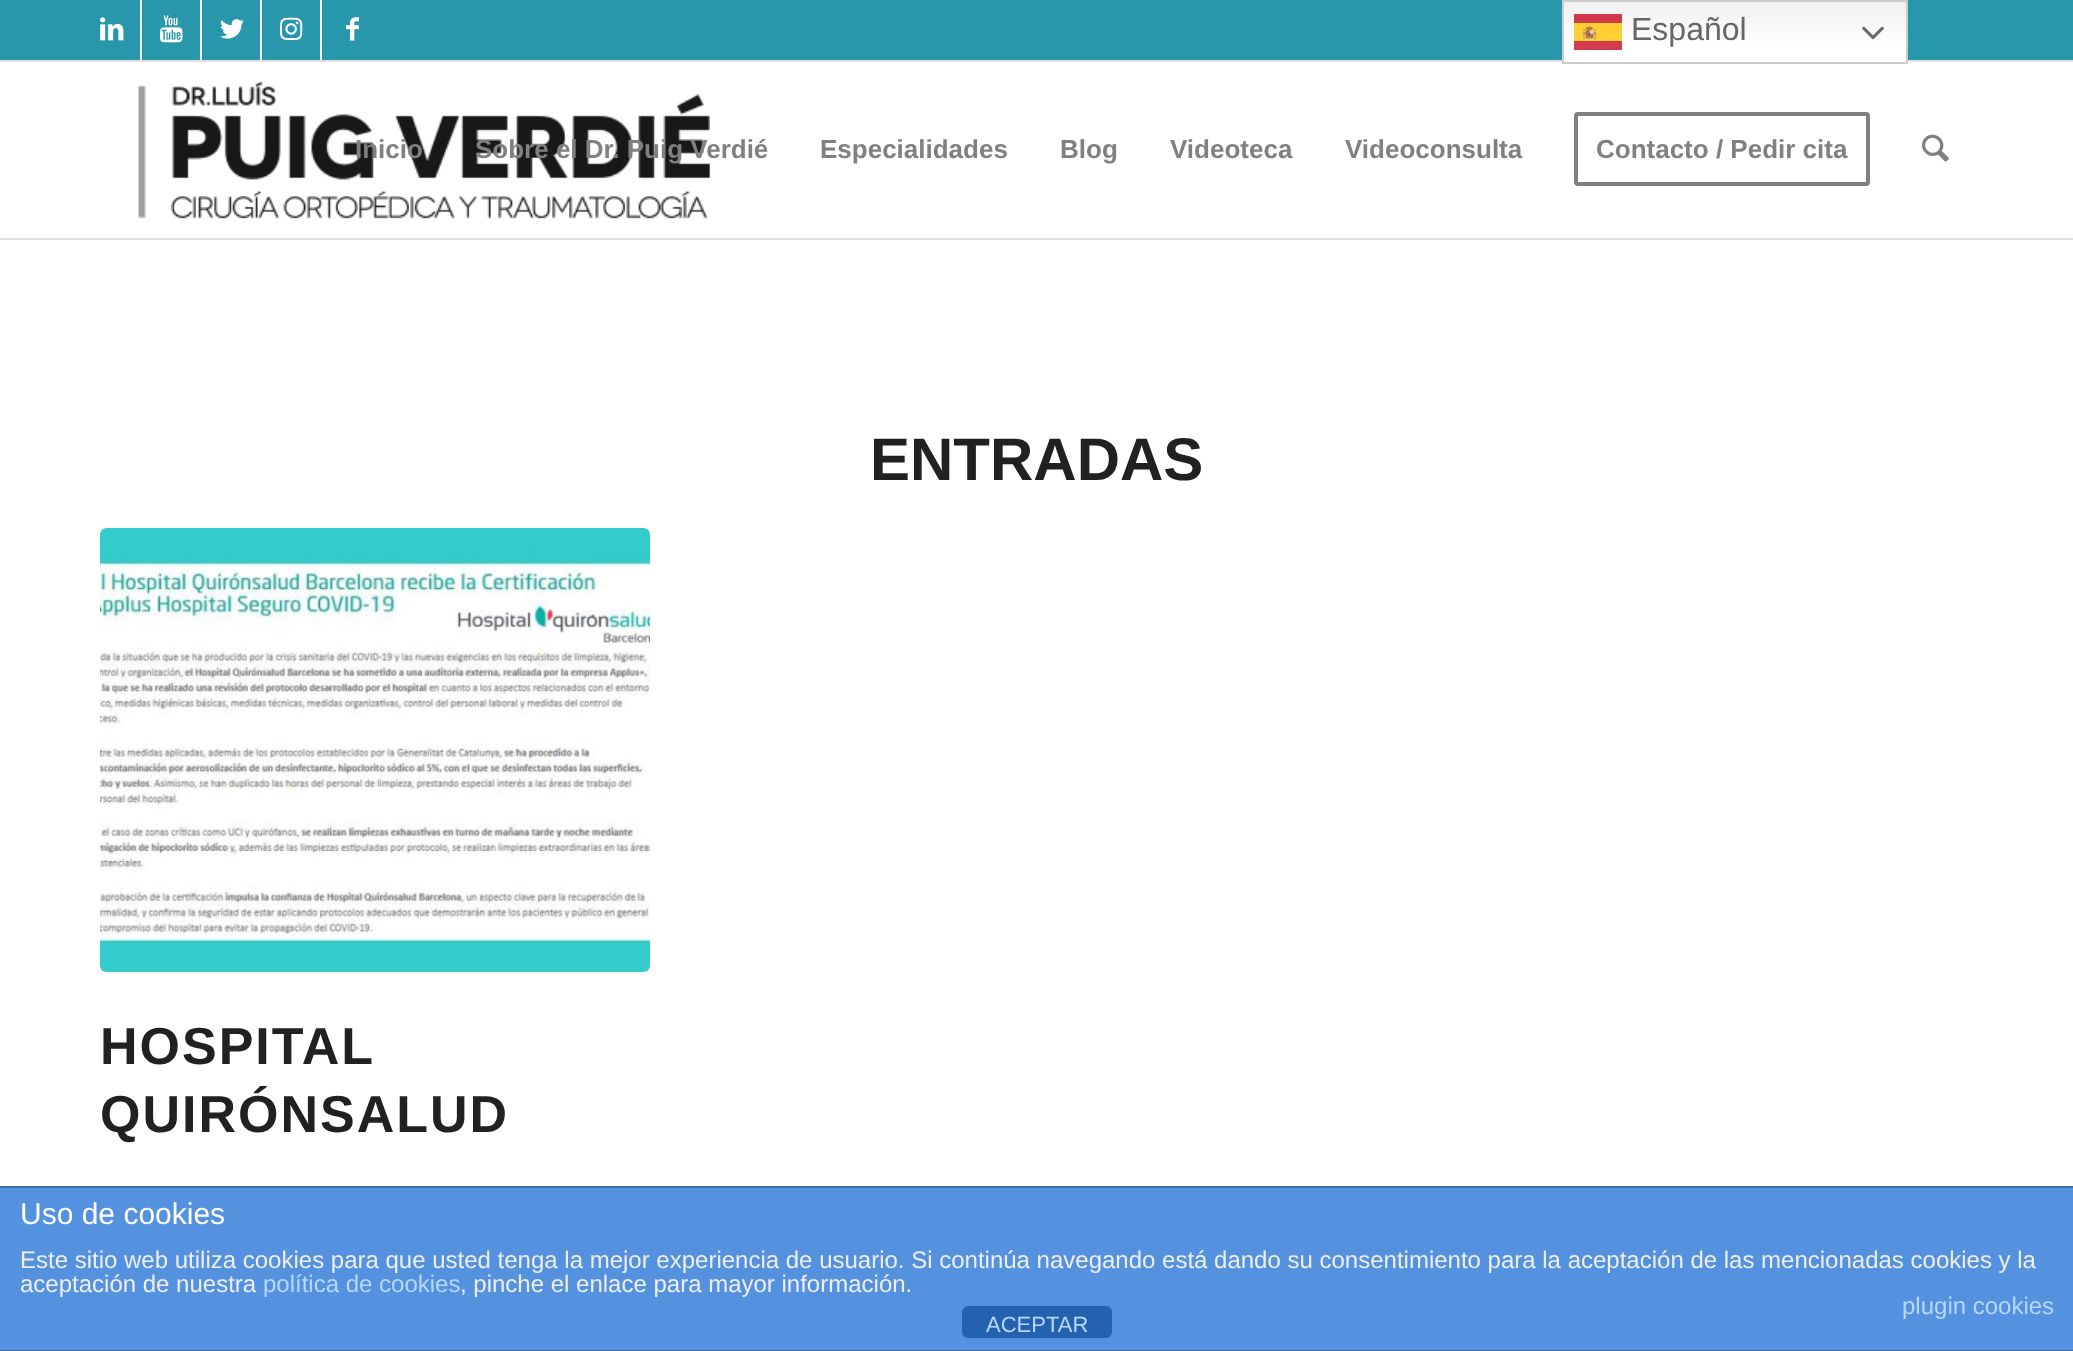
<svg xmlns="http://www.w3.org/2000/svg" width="2073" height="1351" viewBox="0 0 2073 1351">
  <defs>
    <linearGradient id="g1" gradientUnits="userSpaceOnUse" x1="1735" y1="0" x2="1735" y2="64"><stop offset="0" stop-color="#efefef"/><stop offset="0.7" stop-color="#ffffff"/></linearGradient>
  </defs>
  <rect width="100%" height="100%" fill="#ffffff"/>
  <rect x="0" y="0" width="2073" height="60" fill="#2997ab"/>
  <rect x="0" y="60" width="2073" height="2" fill="#e1e1e1"/>
  <rect x="1564" y="2" width="342" height="60" fill="url(#g1)"/>
  <rect x="1563" y="1" width="344" height="62" fill="none" stroke="#cccccc" stroke-width="2"/>
  <image x="1574" y="14" width="48" height="36" href="img1.png"/>
  <text x="1631" y="40" font-family="Liberation Sans" font-size="32" fill="#666666">Español</text>
  <image x="1862" y="26" width="22" height="14" href="img2.png"/>
  <rect x="140" y="0" width="2" height="60" fill="#fcfcfc"/>
  <image x="100" y="17" width="24" height="24" href="img3.png"/>
  <rect x="200" y="0" width="2" height="60" fill="#fcfcfc"/>
  <image x="160" y="15" width="23" height="28" href="img4.png"/>
  <rect x="260" y="0" width="2" height="60" fill="#fcfcfc"/>
  <image x="220" y="19" width="24" height="20" href="img5.png"/>
  <rect x="320" y="0" width="2" height="60" fill="#fcfcfc"/>
  <image x="280" y="17" width="23" height="24" href="img6.png"/>
  <image x="346" y="17" width="13" height="24" href="img7.png"/>
  <rect x="0" y="238" width="2073" height="2" fill="#e1e1e1"/>
  <image x="138" y="81" width="572" height="138" href="img8.png"/>
  <text x="355" y="158" font-family="Liberation Sans" font-size="26" font-weight="bold" fill="#808080">Inicio</text>
  <text x="475" y="158" font-family="Liberation Sans" font-size="26" font-weight="bold" fill="#808080">Sobre el Dr. Puig Verdié</text>
  <text x="820" y="158" font-family="Liberation Sans" font-size="26" font-weight="bold" fill="#808080">Especialidades</text>
  <text x="1060" y="158" font-family="Liberation Sans" font-size="26" font-weight="bold" fill="#808080">Blog</text>
  <text x="1170" y="158" font-family="Liberation Sans" font-size="26" font-weight="bold" fill="#808080">Videoteca</text>
  <text x="1345" y="158" font-family="Liberation Sans" font-size="26" font-weight="bold" fill="#808080">Videoconsulta</text>
  <rect x="1576" y="114" width="292" height="70" rx="2" fill="none" stroke="#808080" stroke-width="4"/>
  <text x="1596" y="158" font-family="Liberation Sans" font-size="26" font-weight="bold" fill="#808080">Contacto / Pedir cita</text>
  <image x="1922" y="134" width="27" height="28" href="img9.png"/>
  <text x="870" y="480" font-family="Liberation Sans" font-size="60" font-weight="bold" fill="#212121">ENTRADAS</text>
  <image x="100" y="528" width="550" height="444" href="img10.png"/>
  <text x="100" y="1064" font-family="Liberation Sans" font-size="52" font-weight="bold" letter-spacing="2" fill="#212121">HOSPITAL</text>
  <text x="100" y="1132" font-family="Liberation Sans" font-size="52" font-weight="bold" letter-spacing="2" fill="#212121">QUIRÓNSALUD</text>
  <rect x="0" y="1188" width="2073" height="162" fill="#5492e0"/>
  <rect x="0" y="1186" width="2073" height="2" fill="#3f6da7"/>
  <rect x="0" y="1350" width="2073" height="1" fill="#3f6da7"/>
  <text x="20" y="1224" font-family="Liberation Sans" font-size="30" fill="#ffffff">Uso de cookies</text>
  <text x="20" y="1268" font-family="Liberation Sans" font-size="24" fill="#eeeeee">Este sitio web utiliza cookies para que usted tenga la mejor experiencia de usuario. Si continúa navegando está dando su consentimiento para la aceptación de las mencionadas cookies y la</text>
  <text x="20" y="1292" font-family="Liberation Sans" font-size="24" fill="#eeeeee">aceptación de nuestra</text>
  <text x="263" y="1292" font-family="Liberation Sans" font-size="24" fill="#b7d7ff">política de cookies</text>
  <text x="460" y="1292" font-family="Liberation Sans" font-size="24" fill="#eeeeee">, pinche el enlace para mayor información.</text>
  <text x="1902" y="1314" font-family="Liberation Sans" font-size="24" fill="#b7d7ff">plugin cookies</text>
  <rect x="962" y="1306" width="150" height="32" rx="6" fill="#2462b0"/>
  <text x="986" y="1332" font-family="Liberation Sans" font-size="22" fill="#b7d7ff">ACEPTAR</text>
</svg>
